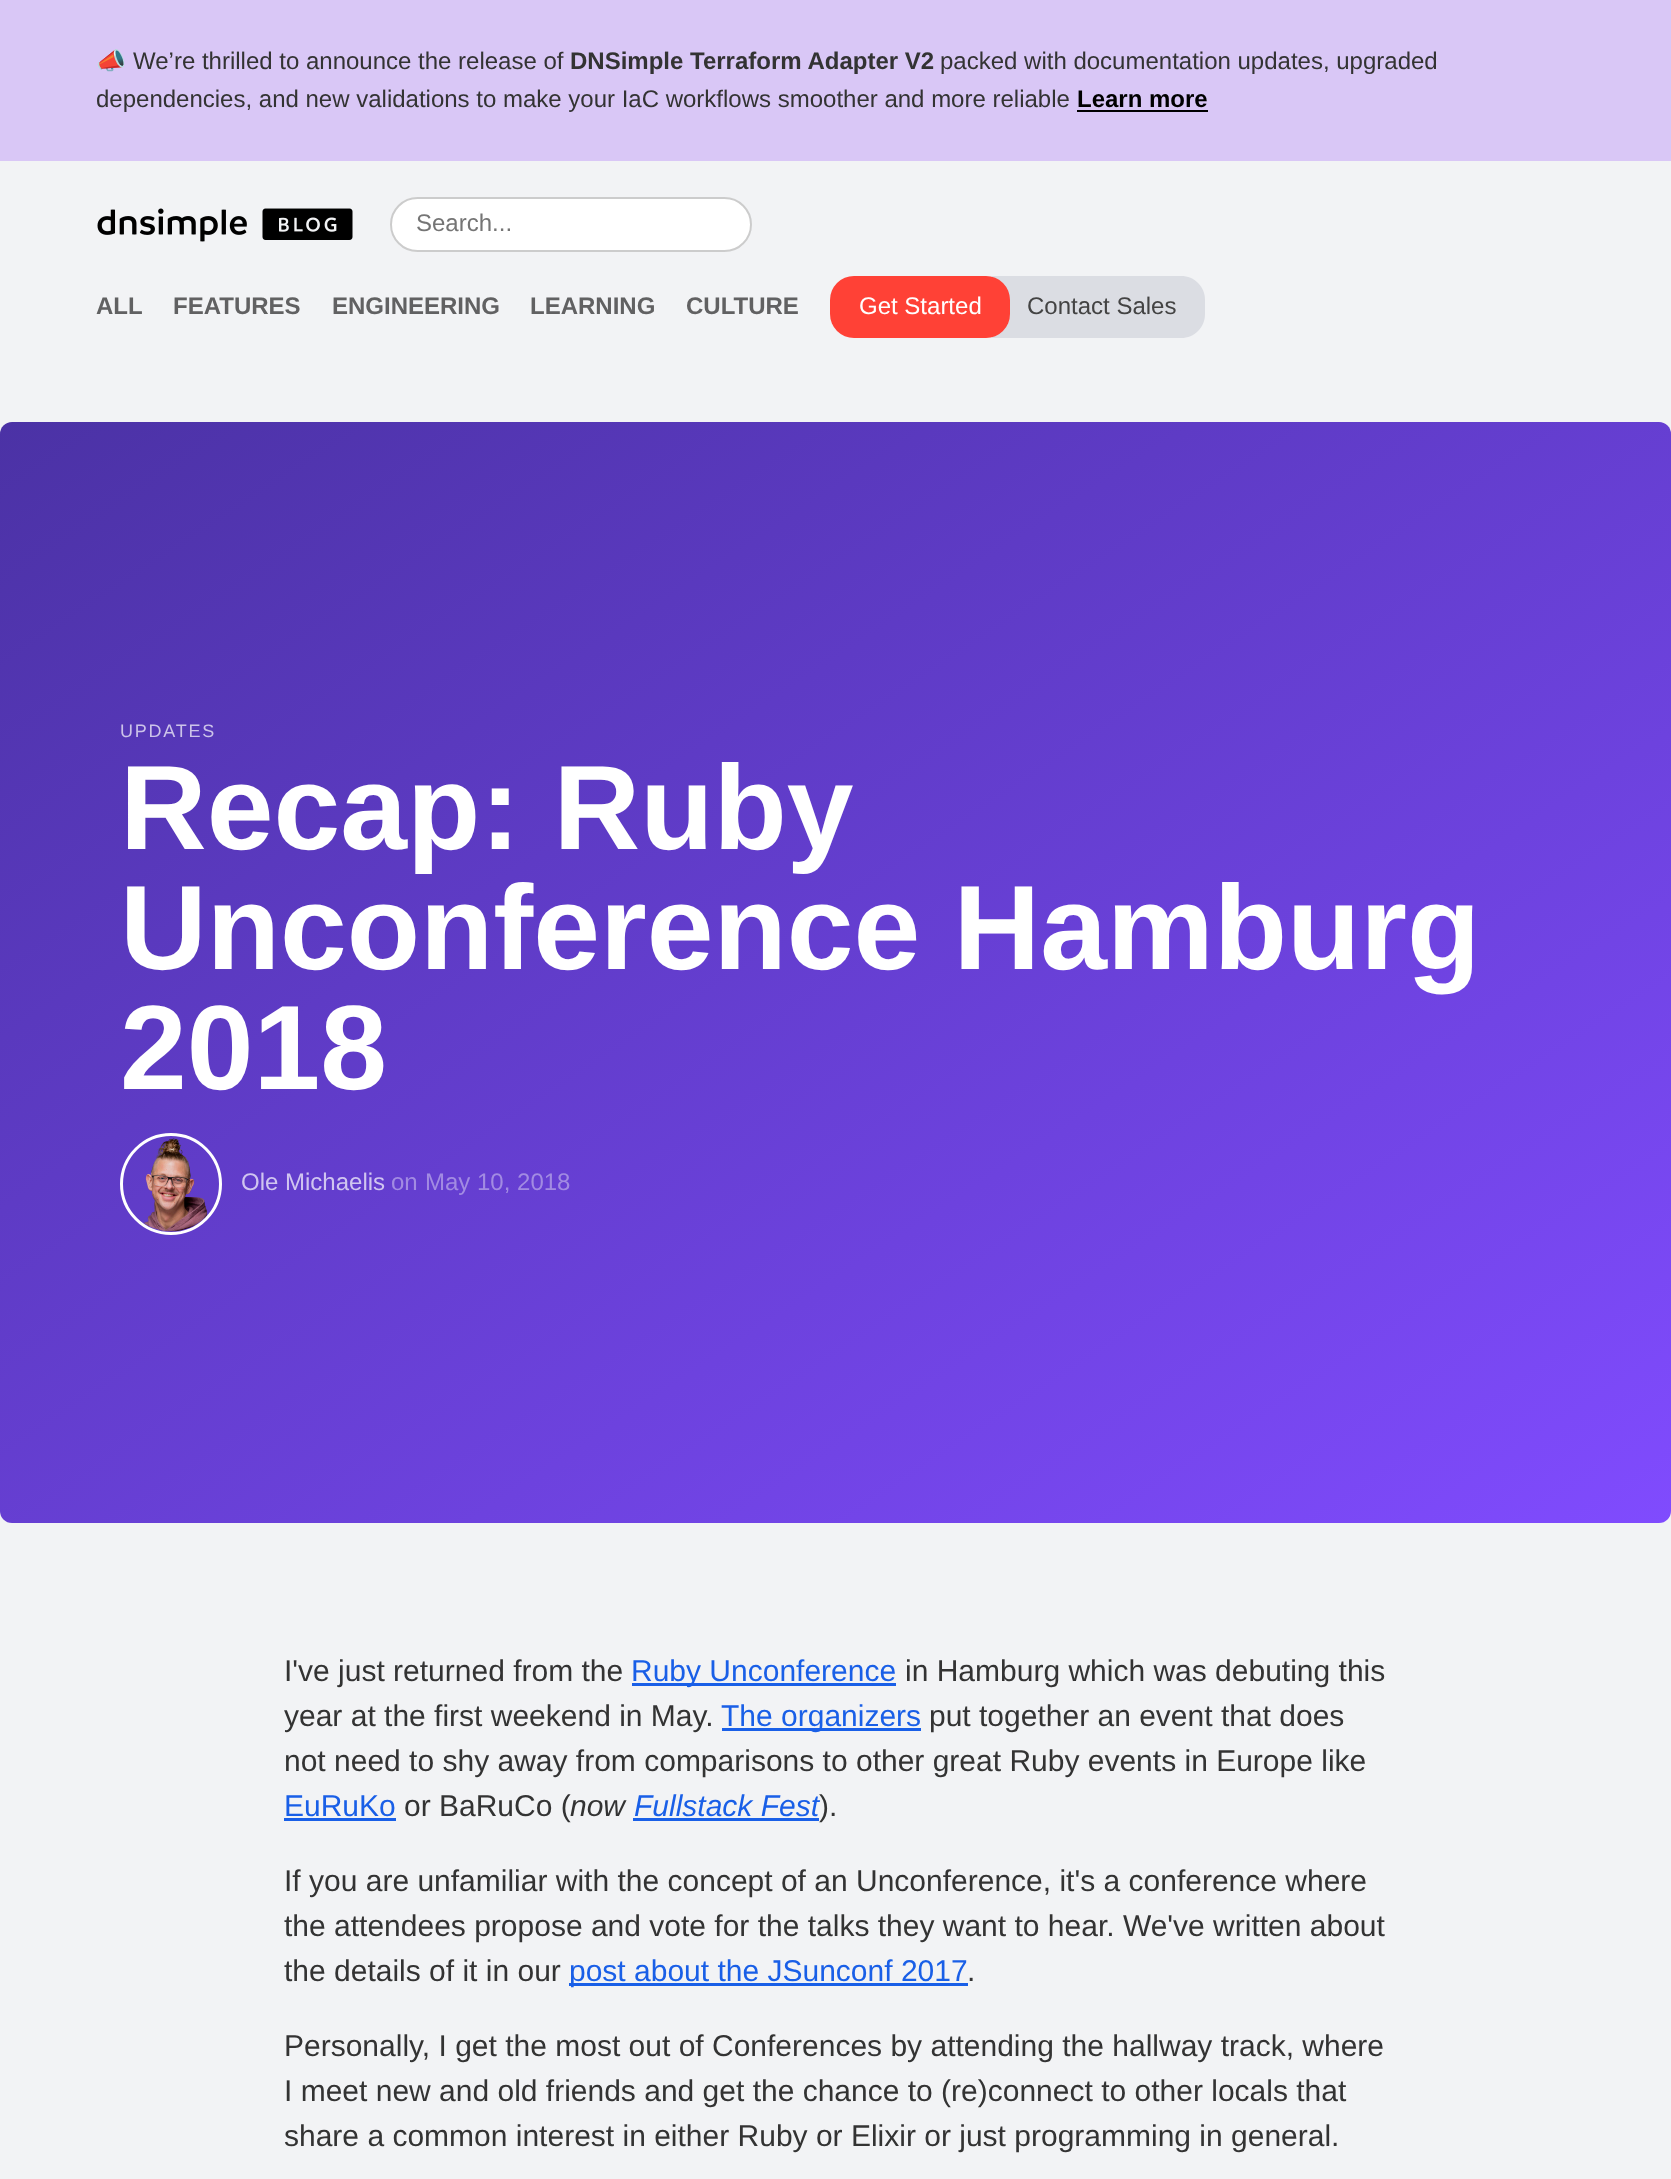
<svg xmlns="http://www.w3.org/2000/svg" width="1671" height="2179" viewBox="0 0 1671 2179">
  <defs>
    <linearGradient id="g1" gradientUnits="userSpaceOnUse" x1="330" y1="204" x2="1341" y2="1740"><stop offset="0" stop-color="#4b32a5"/><stop offset="1" stop-color="#804bfe"/></linearGradient>
  </defs>
  <rect width="100%" height="100%" fill="#f2f3f5"/>
  <rect x="0" y="0" width="1671" height="161" fill="#d9c7f6"/>
  <text x="96" y="69" font-family="Noto Color Emoji" font-size="24" fill="#333333">📣</text>
  <text x="133" y="69" font-family="Liberation Sans" font-size="24" fill="#333333">We’re thrilled to announce the release of</text>
  <text x="570" y="69" font-family="Liberation Sans" font-size="24" font-weight="bold" fill="#333333">DNSimple Terraform Adapter V2</text>
  <text x="940" y="69" font-family="Liberation Sans" font-size="24" fill="#333333">packed with documentation updates, upgraded</text>
  <text x="96" y="107" font-family="Liberation Sans" font-size="24" fill="#333333">dependencies, and new validations to make your IaC workflows smoother and more reliable</text>
  <text x="1077" y="107" font-family="Liberation Sans" font-size="24" font-weight="bold" fill="#000000">Learn more</text>
  <rect x="1077" y="110" width="131" height="2" fill="#000000"/>
  <image x="97" y="208" width="256" height="34" href="img1.png"/>
  <rect x="390" y="197" width="362" height="55" rx="27.5" fill="#ffffff"/>
  <rect x="391" y="198" width="360" height="53" rx="26.5" fill="none" stroke="#000000" stroke-opacity="0.2" stroke-width="2"/>
  <text x="416" y="231" font-family="Liberation Sans" font-size="24" fill="#757575">Search...</text>
  <text x="96" y="314" font-family="Liberation Sans" font-size="24" font-weight="bold" fill="#616162">ALL</text>
  <text x="173" y="314" font-family="Liberation Sans" font-size="24" font-weight="bold" fill="#616162">FEATURES</text>
  <text x="332" y="314" font-family="Liberation Sans" font-size="24" font-weight="bold" fill="#616162">ENGINEERING</text>
  <text x="530" y="314" font-family="Liberation Sans" font-size="24" font-weight="bold" fill="#616162">LEARNING</text>
  <text x="686" y="314" font-family="Liberation Sans" font-size="24" font-weight="bold" fill="#616162">CULTURE</text>
  <path d="M992 276H1181C1194.5 276 1205 286.5 1205 300V314C1205 327.5 1194.5 338 1181 338H992Z" fill="#dbdde3"/>
  <rect x="830" y="276" width="180" height="62" rx="24" fill="#ff4136"/>
  <text x="859" y="314" font-family="Liberation Sans" font-size="24" fill="#ffffff">Get Started</text>
  <text x="1027" y="314" font-family="Liberation Sans" font-size="24" fill="#434343">Contact Sales</text>
  <rect x="0" y="422" width="1671" height="1101" rx="12" fill="url(#g1)"/>
  <text x="120" y="737" font-family="Liberation Sans" font-size="18" letter-spacing="1.75" fill="#ccc3e9">UPDATES</text>
  <text x="120" y="849" font-family="Liberation Sans" font-size="120" font-weight="bold" fill="#ffffff">Recap: Ruby</text>
  <text x="120" y="969" font-family="Liberation Sans" font-size="120" font-weight="bold" fill="#ffffff">Unconference Hamburg</text>
  <text x="120" y="1089" font-family="Liberation Sans" font-size="120" font-weight="bold" fill="#ffffff">2018</text>
  <circle cx="171" cy="1184" r="49.5" fill="none" stroke="#ffffff" stroke-width="3"/>
  <image x="143" y="1138" width="65" height="94" href="img2.png"/>
  <text x="241" y="1190" font-family="Liberation Sans" font-size="24" fill="#d0c5f0">Ole Michaelis</text>
  <text x="391" y="1190" font-family="Liberation Sans" font-size="24" fill="#a28be2">on</text>
  <text x="425" y="1190" font-family="Liberation Sans" font-size="24" fill="#a28be2">May 10, 2018</text>
  <text x="284" y="1681" font-family="Liberation Sans" font-size="30" fill="#333333">I've just returned from the</text>
  <rect x="632" y="1683" width="264" height="3" fill="#195fe7"/>
  <text x="631" y="1681" font-family="Liberation Sans" font-size="30" fill="#195fe7">Ruby Unconference</text>
  <text x="905" y="1681" font-family="Liberation Sans" font-size="30" fill="#333333">in Hamburg which was debuting this</text>
  <text x="284" y="1726" font-family="Liberation Sans" font-size="30" fill="#333333">year at the first weekend in May.</text>
  <rect x="722" y="1728" width="199" height="3" fill="#195fe7"/>
  <text x="721" y="1726" font-family="Liberation Sans" font-size="30" fill="#195fe7">The organizers</text>
  <text x="929" y="1726" font-family="Liberation Sans" font-size="30" fill="#333333">put together an event that does</text>
  <text x="284" y="1771" font-family="Liberation Sans" font-size="30" fill="#333333">not need to shy away from comparisons to other great Ruby events in Europe like</text>
  <text x="284" y="1816" font-family="Liberation Sans" font-size="30" fill="#195fe7">EuRuKo</text>
  <rect x="284" y="1818" width="112" height="3" fill="#195fe7"/>
  <text x="404" y="1816" font-family="Liberation Sans" font-size="30" fill="#333333">or BaRuCo (</text>
  <text x="570" y="1816" font-family="Liberation Sans" font-size="30" font-style="italic" fill="#333333">now</text>
  <text x="634" y="1816" font-family="Liberation Sans" font-size="30" font-style="italic" fill="#195fe7">Fullstack Fest</text>
  <rect x="633" y="1818" width="186" height="3" fill="#195fe7"/>
  <text x="819" y="1816" font-family="Liberation Sans" font-size="30" fill="#333333">).</text>
  <text x="284" y="1891" font-family="Liberation Sans" font-size="30" fill="#333333">If you are unfamiliar with the concept of an Unconference, it's a conference where</text>
  <text x="284" y="1936" font-family="Liberation Sans" font-size="30" fill="#333333">the attendees propose and vote for the talks they want to hear. We've written about</text>
  <text x="284" y="1981" font-family="Liberation Sans" font-size="30" fill="#333333">the details of it in our</text>
  <rect x="569" y="1983" width="399" height="3" fill="#195fe7"/>
  <text x="569" y="1981" font-family="Liberation Sans" font-size="30" fill="#195fe7">post about the JSunconf 2017</text>
  <text x="967" y="1981" font-family="Liberation Sans" font-size="30" fill="#333333">.</text>
  <text x="284" y="2056" font-family="Liberation Sans" font-size="30" fill="#333333">Personally, I get the most out of Conferences by attending the hallway track, where</text>
  <text x="284" y="2101" font-family="Liberation Sans" font-size="30" fill="#333333">I meet new and old friends and get the chance to (re)connect to other locals that</text>
  <text x="284" y="2146" font-family="Liberation Sans" font-size="30" fill="#333333">share a common interest in either Ruby or Elixir or just programming in general.</text>
</svg>
